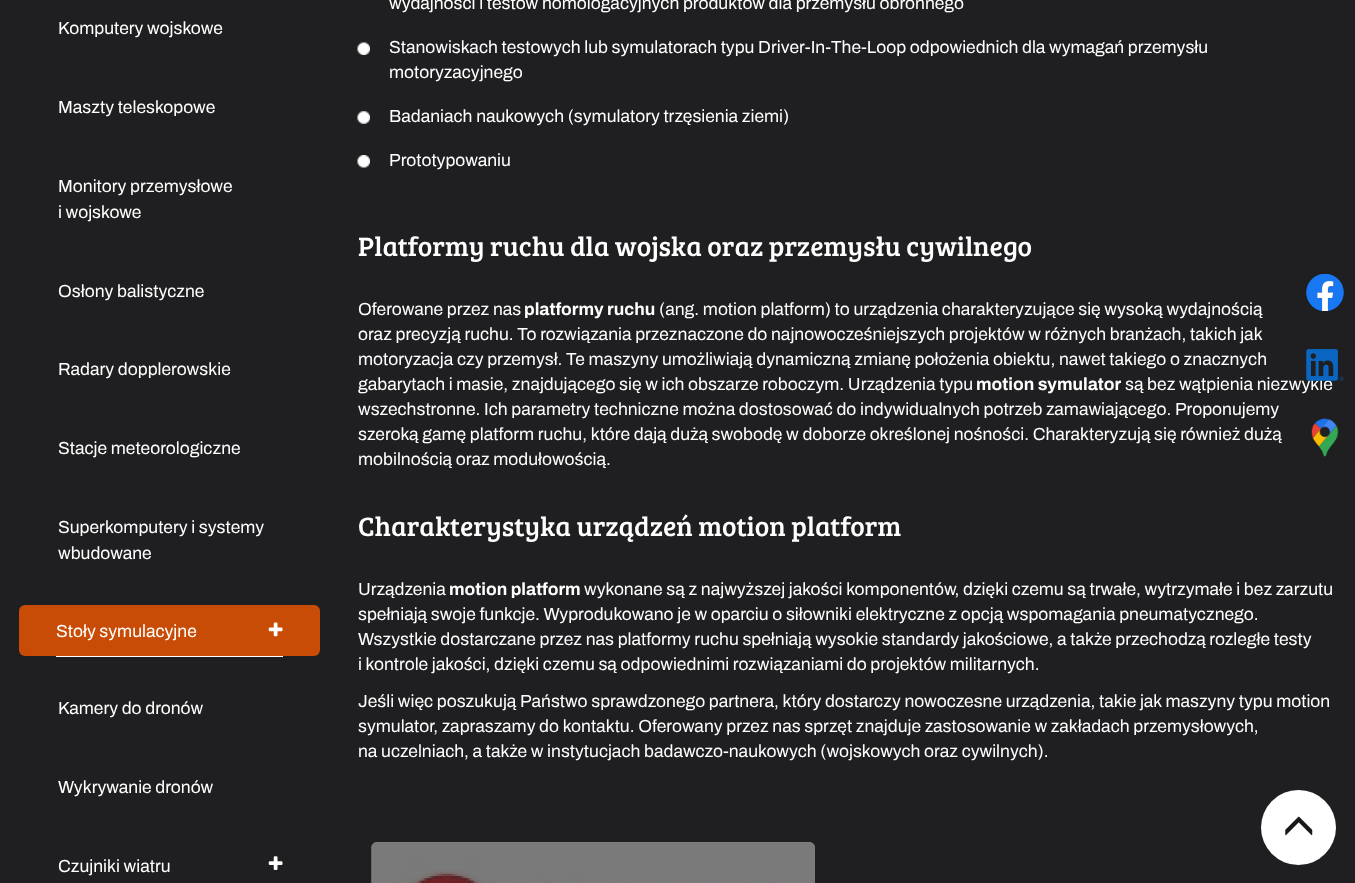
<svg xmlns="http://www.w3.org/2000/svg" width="1355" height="883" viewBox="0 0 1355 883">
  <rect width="100%" height="100%" fill="#1f1f21"/>
  <text x="58" y="34" font-family="Archivo" font-size="17.5" fill="#ffffff">Komputery wojskowe</text>
  <text x="58" y="113" font-family="Archivo" font-size="17.5" fill="#ffffff">Maszty teleskopowe</text>
  <text x="58" y="192" font-family="Archivo" font-size="17.5" fill="#ffffff">Monitory przemysłowe</text>
  <text x="58" y="218" font-family="Archivo" font-size="17.5" fill="#ffffff">i wojskowe</text>
  <text x="58" y="297" font-family="Archivo" font-size="17.5" fill="#ffffff">Osłony balistyczne</text>
  <text x="58" y="375" font-family="Archivo" font-size="17.5" fill="#ffffff">Radary dopplerowskie</text>
  <text x="58" y="454" font-family="Archivo" font-size="17.5" fill="#ffffff">Stacje meteorologiczne</text>
  <text x="58" y="533" font-family="Archivo" font-size="17.5" fill="#ffffff">Superkomputery i systemy</text>
  <text x="58" y="559" font-family="Archivo" font-size="17.5" fill="#ffffff">wbudowane</text>
  <rect x="19" y="605" width="301" height="51" rx="6" fill="#c94c06"/>
  <text x="56" y="637" font-family="Archivo" font-size="17.5" fill="#ffffff">Stoły symulacyjne</text>
  <rect x="56" y="656" width="227" height="1" fill="#ffffff"/>
  <image x="268" y="622" width="15" height="15" href="img1.png"/>
  <text x="58" y="714" font-family="Archivo" font-size="17.5" fill="#ffffff">Kamery do dronów</text>
  <text x="58" y="793" font-family="Archivo" font-size="17.5" fill="#ffffff">Wykrywanie dronów</text>
  <text x="58" y="872" font-family="Archivo" font-size="17.5" fill="#ffffff">Czujniki wiatru</text>
  <image x="268" y="856" width="15" height="14" href="img2.png"/>
  <text x="389" y="9" font-family="Archivo" font-size="17.5" fill="#ffffff">wydajności i testów homologacyjnych produktów dla przemysłu obronnego</text>
  <image x="357" y="42" width="13" height="13" href="img3.png"/>
  <text x="389" y="53" font-family="Archivo" font-size="17.5" fill="#ffffff">Stanowiskach testowych lub symulatorach typu Driver-In-The-Loop odpowiednich dla wymagań przemysłu</text>
  <text x="389" y="78" font-family="Archivo" font-size="17.5" fill="#ffffff">motoryzacyjnego</text>
  <image x="357" y="111" width="13" height="13" href="img4.png"/>
  <text x="389" y="122" font-family="Archivo" font-size="17.5" fill="#ffffff">Badaniach naukowych (symulatory trzęsienia ziemi)</text>
  <image x="357" y="155" width="13" height="13" href="img5.png"/>
  <text x="389" y="166" font-family="Archivo" font-size="17.5" fill="#ffffff">Prototypowaniu</text>
  <text x="358" y="256" font-family="Bree Serif" font-size="27.5" fill="#ffffff">Platformy ruchu dla wojska oraz przemysłu cywilnego</text>
  <text x="358" y="315" font-family="Archivo" font-size="17.5" fill="#ffffff">Oferowane przez nas</text>
  <text x="524" y="315" font-family="Archivo" font-size="17.5" font-weight="bold" fill="#ffffff">platformy ruchu</text>
  <text x="659" y="315" font-family="Archivo" font-size="17.5" fill="#ffffff">(ang. motion platform) to urządzenia charakteryzujące się wysoką wydajnością</text>
  <text x="358" y="340" font-family="Archivo" font-size="17.5" fill="#ffffff">oraz precyzją ruchu. To rozwiązania przeznaczone do najnowocześniejszych projektów w różnych branżach, takich jak</text>
  <text x="358" y="365" font-family="Archivo" font-size="17.5" fill="#ffffff">motoryzacja czy przemysł. Te maszyny umożliwiają dynamiczną zmianę położenia obiektu, nawet takiego o znacznych</text>
  <text x="358" y="390" font-family="Archivo" font-size="17.5" fill="#ffffff">gabarytach i masie, znajdującego się w ich obszarze roboczym. Urządzenia typu</text>
  <text x="976" y="390" font-family="Archivo" font-size="17.5" font-weight="bold" fill="#ffffff">motion symulator</text>
  <text x="1125" y="390" font-family="Archivo" font-size="17.5" fill="#ffffff">są bez wątpienia niezwykle</text>
  <text x="358" y="415" font-family="Archivo" font-size="17.5" fill="#ffffff">wszechstronne. Ich parametry techniczne można dostosować do indywidualnych potrzeb zamawiającego. Proponujemy</text>
  <text x="358" y="440" font-family="Archivo" font-size="17.5" fill="#ffffff">szeroką gamę platform ruchu, które dają dużą swobodę w doborze określonej nośności. Charakteryzują się również dużą</text>
  <text x="358" y="465" font-family="Archivo" font-size="17.5" fill="#ffffff">mobilnością oraz modułowością.</text>
  <text x="358" y="536" font-family="Bree Serif" font-size="27.5" fill="#ffffff">Charakterystyka urządzeń motion platform</text>
  <text x="358" y="595" font-family="Archivo" font-size="17.5" fill="#ffffff">Urządzenia</text>
  <text x="449" y="595" font-family="Archivo" font-size="17.5" font-weight="bold" fill="#ffffff">motion platform</text>
  <text x="584" y="595" font-family="Archivo" font-size="17.5" fill="#ffffff">wykonane są z najwyższej jakości komponentów, dzięki czemu są trwałe, wytrzymałe i bez zarzutu</text>
  <text x="358" y="620" font-family="Archivo" font-size="17.5" fill="#ffffff">spełniają swoje funkcje. Wyprodukowano je w oparciu o siłowniki elektryczne z opcją wspomagania pneumatycznego.</text>
  <text x="358" y="645" font-family="Archivo" font-size="17.5" fill="#ffffff">Wszystkie dostarczane przez nas platformy ruchu spełniają wysokie standardy jakościowe, a także przechodzą rozległe testy</text>
  <text x="358" y="670" font-family="Archivo" font-size="17.5" fill="#ffffff">i kontrole jakości, dzięki czemu są odpowiednimi rozwiązaniami do projektów militarnych.</text>
  <text x="358" y="707" font-family="Archivo" font-size="17.5" fill="#ffffff">Jeśli więc poszukują Państwo sprawdzonego partnera, który dostarczy nowoczesne urządzenia, takie jak maszyny typu motion</text>
  <text x="358" y="732" font-family="Archivo" font-size="17.5" fill="#ffffff">symulator, zapraszamy do kontaktu. Oferowany przez nas sprzęt znajduje zastosowanie w zakładach przemysłowych,</text>
  <text x="358" y="757" font-family="Archivo" font-size="17.5" fill="#ffffff">na uczelniach, a także w instytucjach badawczo-naukowych (wojskowych oraz cywilnych).</text>
  <image x="371" y="842" width="444" height="41" href="img6.png"/>
  <image x="371" y="842" width="444" height="41" href="img7.png"/>
  <image x="1306" y="274" width="38" height="37" href="img8.png"/>
  <image x="1306" y="349" width="38" height="32" href="img9.png"/>
  <image x="1311" y="418" width="28" height="39" href="img10.png"/>
  <circle cx="1298.5" cy="827.5" r="37.5" fill="#ffffff"/>
  <image x="1285" y="816" width="28" height="20" href="img11.png"/>
</svg>
